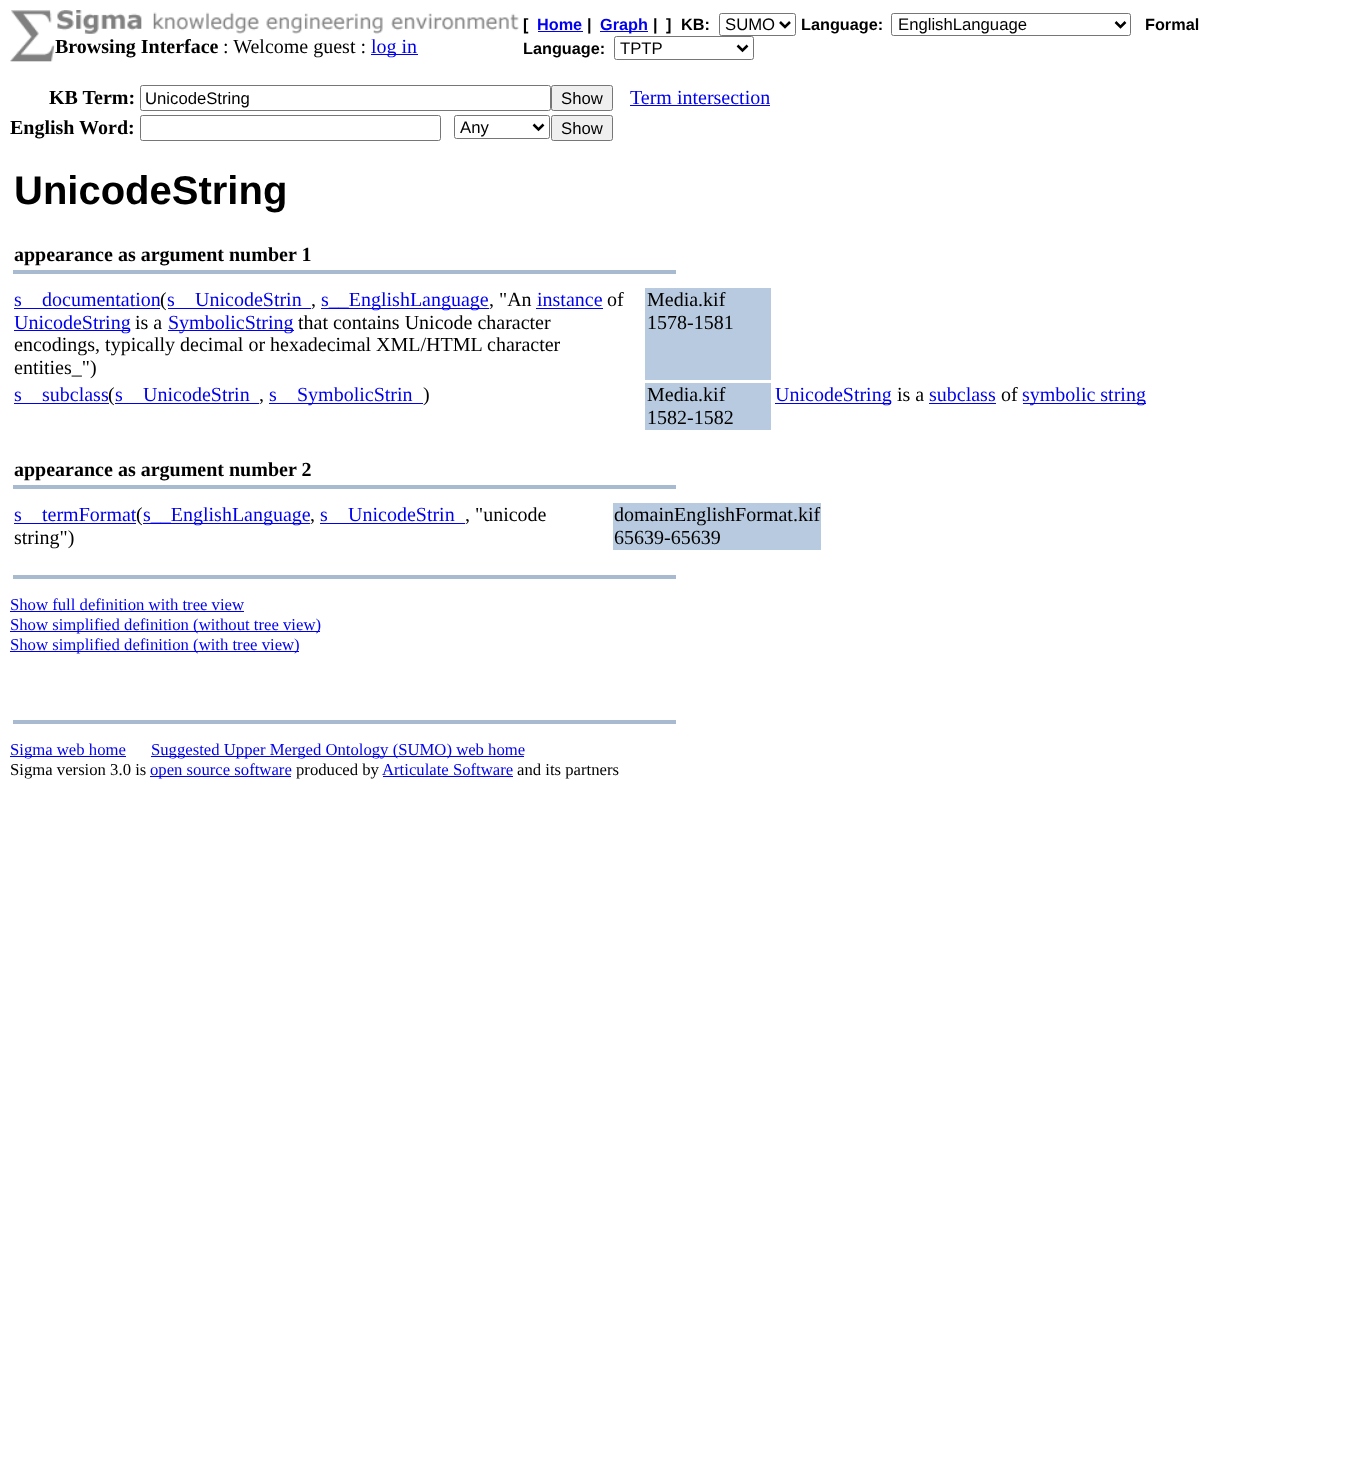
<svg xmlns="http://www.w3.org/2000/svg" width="1357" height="1463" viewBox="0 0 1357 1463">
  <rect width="100%" height="100%" fill="#ffffff"/>
  <image x="10" y="10" width="45" height="52" href="img1.png"/>
  <image x="57" y="10" width="462" height="24" href="img2.png"/>
  <text x="55" y="53" font-family="Liberation Serif" font-size="20" font-weight="bold" fill="#000000">Browsing Interface</text>
  <text x="223" y="53" font-family="Liberation Serif" font-size="20" fill="#000000">: Welcome guest :</text>
  <rect x="371" y="54" width="47" height="1" fill="#0000ee"/>
  <text x="371" y="53" font-family="Liberation Serif" font-size="20" fill="#0000ee">log in</text>
  <text x="523" y="30" font-family="Liberation Sans" font-size="16.25" font-weight="bold" fill="#000000">[</text>
  <text x="801" y="30" font-family="Liberation Sans" font-size="16.25" font-weight="bold" fill="#000000">Language:</text>
  <rect x="891.5" y="13.5" width="239" height="22" rx="2" fill="none" stroke="#767676"/>
  <path d="M1115.5 22L1120.5 27L1125.5 22" fill="none" stroke="#000000" stroke-width="2.5"/>
  <text x="898" y="30" font-family="Liberation Sans" font-size="16.7" fill="#000000">EnglishLanguage</text>
  <text x="1145" y="30" font-family="Liberation Sans" font-size="16.25" font-weight="bold" fill="#000000">Formal</text>
  <text x="523" y="54" font-family="Liberation Sans" font-size="16.25" font-weight="bold" fill="#000000">Language:</text>
  <rect x="614.5" y="36.5" width="139" height="23" rx="2" fill="none" stroke="#767676"/>
  <path d="M737.5 45.5L742.5 50.5L747.5 45.5" fill="none" stroke="#000000" stroke-width="2.5"/>
  <text x="620" y="54" font-family="Liberation Sans" font-size="16.7" fill="#000000">TPTP</text>
  <text x="537" y="30" font-family="Liberation Sans" font-size="16.25" font-weight="bold" fill="#0000ee">Home</text>
  <rect x="538" y="31" width="45" height="1" fill="#0000ee"/>
  <text x="587" y="30" font-family="Liberation Sans" font-size="16.25" font-weight="bold" fill="#000000">|</text>
  <rect x="600" y="31" width="48" height="1" fill="#0000ee"/>
  <text x="600" y="30" font-family="Liberation Sans" font-size="16.25" font-weight="bold" fill="#0000ee">Graph</text>
  <text x="653" y="30" font-family="Liberation Sans" font-size="16.25" font-weight="bold" fill="#000000">|</text>
  <text x="666" y="30" font-family="Liberation Sans" font-size="16.25" font-weight="bold" fill="#000000">]</text>
  <text x="681" y="30" font-family="Liberation Sans" font-size="16.25" font-weight="bold" fill="#000000">KB:</text>
  <rect x="719.5" y="13.5" width="76" height="22" rx="2" fill="none" stroke="#767676"/>
  <path d="M780 22L785 27L790 22" fill="none" stroke="#000000" stroke-width="2.5"/>
  <text x="725" y="30" font-family="Liberation Sans" font-size="16.7" fill="#000000">SUMO</text>
  <text x="49" y="104" font-family="Liberation Serif" font-size="20" font-weight="bold" fill="#000000">KB Term:</text>
  <rect x="140.5" y="85.5" width="410" height="25" rx="2" fill="none" stroke="#767676"/>
  <text x="145" y="104" font-family="Liberation Sans" font-size="16.7" fill="#000000">UnicodeString</text>
  <rect x="551.5" y="85.5" width="61" height="25" rx="2" fill="#efefef" stroke="#767676"/>
  <text x="561" y="104" font-family="Liberation Sans" font-size="16.7" fill="#000000">Show</text>
  <text x="630" y="104" font-family="Liberation Serif" font-size="20" fill="#0000ee">Term intersection</text>
  <rect x="630" y="105" width="140" height="1" fill="#0000ee"/>
  <text x="10" y="134" font-family="Liberation Serif" font-size="20" font-weight="bold" fill="#000000">English Word:</text>
  <rect x="140.5" y="115.5" width="300" height="25" rx="2" fill="none" stroke="#767676"/>
  <rect x="454.5" y="115.5" width="95" height="23" rx="2" fill="none" stroke="#767676"/>
  <path d="M533.5 124.5L538.5 129.5L543.5 124.5" fill="none" stroke="#000000" stroke-width="2.5"/>
  <text x="460" y="133" font-family="Liberation Sans" font-size="16.7" fill="#000000">Any</text>
  <rect x="551.5" y="115.5" width="61" height="25" rx="2" fill="#efefef" stroke="#767676"/>
  <text x="561" y="134" font-family="Liberation Sans" font-size="16.7" fill="#000000">Show</text>
  <text x="14" y="204" font-family="Liberation Sans" font-size="40" font-weight="bold" fill="#000000">UnicodeString</text>
  <text x="14" y="261" font-family="Liberation Serif" font-size="20" font-weight="bold" fill="#000000">appearance as argument number 1</text>
  <rect x="13" y="270" width="663" height="4" fill="#a8bacf"/>
  <text x="14" y="306" font-family="Liberation Serif" font-size="20" fill="#0000ee">s</text>
  <rect x="14" y="308" width="146" height="1" fill="#0000ee"/>
  <text x="42" y="306" font-family="Liberation Serif" font-size="20" fill="#0000ee">documentation</text>
  <text x="160" y="306" font-family="Liberation Serif" font-size="20" fill="#000000">(</text>
  <text x="167" y="306" font-family="Liberation Serif" font-size="20" fill="#0000ee">s</text>
  <rect x="168" y="308" width="143" height="1" fill="#0000ee"/>
  <text x="195" y="306" font-family="Liberation Serif" font-size="20" fill="#0000ee">UnicodeStrin</text>
  <text x="311" y="306" font-family="Liberation Serif" font-size="20" fill="#000000">,</text>
  <rect x="321" y="308" width="168" height="1" fill="#0000ee"/>
  <text x="321" y="306" font-family="Liberation Serif" font-size="20" fill="#0000ee">s__EnglishLanguage</text>
  <text x="489" y="306" font-family="Liberation Serif" font-size="20" fill="#000000">, "An</text>
  <text x="537" y="306" font-family="Liberation Serif" font-size="20" fill="#0000ee">instance</text>
  <rect x="536" y="308" width="67" height="1" fill="#0000ee"/>
  <text x="607" y="306" font-family="Liberation Serif" font-size="20" fill="#000000">of</text>
  <rect x="14" y="330" width="116" height="1" fill="#0000ee"/>
  <text x="14" y="329" font-family="Liberation Serif" font-size="20" fill="#0000ee">UnicodeString</text>
  <text x="135" y="329" font-family="Liberation Serif" font-size="20" fill="#000000">is a</text>
  <rect x="168" y="330" width="126" height="1" fill="#0000ee"/>
  <text x="168" y="329" font-family="Liberation Serif" font-size="20" fill="#0000ee">SymbolicString</text>
  <text x="298" y="329" font-family="Liberation Serif" font-size="20" fill="#000000">that contains Unicode character</text>
  <text x="14" y="351" font-family="Liberation Serif" font-size="20" fill="#000000">encodings, typically decimal or hexadecimal XML/HTML character</text>
  <text x="14" y="374" font-family="Liberation Serif" font-size="20" fill="#000000">entities_")</text>
  <rect x="645" y="288" width="126" height="92" fill="#b8cadf"/>
  <text x="647" y="306" font-family="Liberation Serif" font-size="20" fill="#000000">Media.kif</text>
  <text x="647" y="329" font-family="Liberation Serif" font-size="20" fill="#000000">1578-1581</text>
  <text x="14" y="401" font-family="Liberation Serif" font-size="20" fill="#0000ee">s</text>
  <rect x="14" y="403" width="95" height="1" fill="#0000ee"/>
  <text x="42" y="401" font-family="Liberation Serif" font-size="20" fill="#0000ee">subclass</text>
  <text x="108" y="401" font-family="Liberation Serif" font-size="20" fill="#000000">(</text>
  <text x="115" y="401" font-family="Liberation Serif" font-size="20" fill="#0000ee">s</text>
  <rect x="115" y="403" width="144" height="1" fill="#0000ee"/>
  <text x="143" y="401" font-family="Liberation Serif" font-size="20" fill="#0000ee">UnicodeStrin</text>
  <text x="259" y="401" font-family="Liberation Serif" font-size="20" fill="#000000">,</text>
  <text x="269" y="401" font-family="Liberation Serif" font-size="20" fill="#0000ee">s</text>
  <rect x="269" y="403" width="154" height="1" fill="#0000ee"/>
  <text x="297" y="401" font-family="Liberation Serif" font-size="20" fill="#0000ee">SymbolicStrin</text>
  <text x="423" y="401" font-family="Liberation Serif" font-size="20" fill="#000000">)</text>
  <rect x="645" y="383" width="126" height="47" fill="#b8cadf"/>
  <text x="647" y="401" font-family="Liberation Serif" font-size="20" fill="#000000">Media.kif</text>
  <text x="647" y="424" font-family="Liberation Serif" font-size="20" fill="#000000">1582-1582</text>
  <rect x="775" y="403" width="116" height="1" fill="#0000ee"/>
  <text x="775" y="401" font-family="Liberation Serif" font-size="20" fill="#0000ee">UnicodeString</text>
  <text x="897" y="401" font-family="Liberation Serif" font-size="20" fill="#000000">is a</text>
  <text x="929" y="401" font-family="Liberation Serif" font-size="20" fill="#0000ee">subclass</text>
  <rect x="929" y="403" width="67" height="1" fill="#0000ee"/>
  <text x="1001" y="401" font-family="Liberation Serif" font-size="20" fill="#000000">of</text>
  <rect x="1023" y="403" width="123" height="1" fill="#0000ee"/>
  <text x="1022" y="401" font-family="Liberation Serif" font-size="20" fill="#0000ee">symbolic string</text>
  <text x="14" y="476" font-family="Liberation Serif" font-size="20" font-weight="bold" fill="#000000">appearance as argument number 2</text>
  <rect x="13" y="485" width="663" height="4" fill="#a8bacf"/>
  <text x="14" y="521" font-family="Liberation Serif" font-size="20" fill="#0000ee">s</text>
  <rect x="14" y="523" width="122" height="1" fill="#0000ee"/>
  <text x="42" y="521" font-family="Liberation Serif" font-size="20" fill="#0000ee">termFormat</text>
  <text x="136" y="521" font-family="Liberation Serif" font-size="20" fill="#000000">(</text>
  <rect x="143" y="523" width="167" height="1" fill="#0000ee"/>
  <text x="143" y="521" font-family="Liberation Serif" font-size="20" fill="#0000ee">s__EnglishLanguage</text>
  <text x="310" y="521" font-family="Liberation Serif" font-size="20" fill="#000000">,</text>
  <text x="320" y="521" font-family="Liberation Serif" font-size="20" fill="#0000ee">s</text>
  <rect x="320" y="523" width="145" height="1" fill="#0000ee"/>
  <text x="348" y="521" font-family="Liberation Serif" font-size="20" fill="#0000ee">UnicodeStrin</text>
  <text x="465" y="521" font-family="Liberation Serif" font-size="20" fill="#000000">, "unicode</text>
  <text x="14" y="544" font-family="Liberation Serif" font-size="20" fill="#000000">string")</text>
  <rect x="613" y="503" width="208" height="47" fill="#b8cadf"/>
  <text x="614" y="521" font-family="Liberation Serif" font-size="20" fill="#000000">domainEnglishFormat.kif</text>
  <text x="614" y="544" font-family="Liberation Serif" font-size="20" fill="#000000">65639-65639</text>
  <rect x="13" y="575" width="663" height="4" fill="#a8bacf"/>
  <text x="10" y="610" font-family="Liberation Serif" font-size="16.7" fill="#0000ee">Show full definition with tree view</text>
  <rect x="10" y="611" width="234" height="1" fill="#0000ee"/>
  <rect x="10" y="631" width="310" height="1" fill="#0000ee"/>
  <text x="10" y="630" font-family="Liberation Serif" font-size="16.7" fill="#0000ee">Show simplified definition (without tree view)</text>
  <rect x="10" y="651" width="289" height="1" fill="#0000ee"/>
  <text x="10" y="650" font-family="Liberation Serif" font-size="16.7" fill="#0000ee">Show simplified definition (with tree view)</text>
  <rect x="13" y="720" width="663" height="4" fill="#a8bacf"/>
  <rect x="10" y="756" width="116" height="1" fill="#0000ee"/>
  <text x="10" y="755" font-family="Liberation Serif" font-size="16.7" fill="#0000ee">Sigma web home</text>
  <rect x="151" y="756" width="373" height="1" fill="#0000ee"/>
  <text x="151" y="755" font-family="Liberation Serif" font-size="16.7" fill="#0000ee">Suggested Upper Merged Ontology (SUMO) web home</text>
  <text x="10" y="775" font-family="Liberation Serif" font-size="16.7" fill="#000000">Sigma version 3.0 is</text>
  <rect x="150" y="776" width="141" height="1" fill="#0000ee"/>
  <text x="150" y="775" font-family="Liberation Serif" font-size="16.7" fill="#0000ee">open source software</text>
  <text x="296" y="775" font-family="Liberation Serif" font-size="16.7" fill="#000000">produced by</text>
  <text x="382" y="775" font-family="Liberation Serif" font-size="16.7" fill="#0000ee">Articulate Software</text>
  <rect x="383" y="776" width="130" height="1" fill="#0000ee"/>
  <text x="517" y="775" font-family="Liberation Serif" font-size="16.7" fill="#000000">and its partners</text>
</svg>
